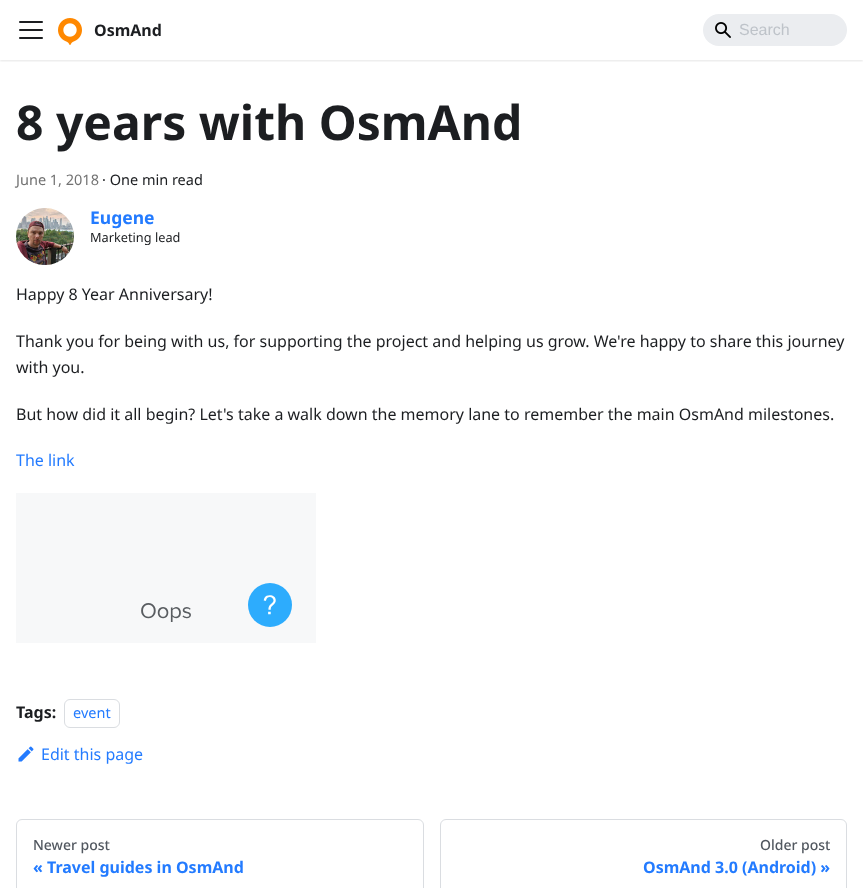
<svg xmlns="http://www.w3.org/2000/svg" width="863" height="888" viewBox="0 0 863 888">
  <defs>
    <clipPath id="clip1"><rect x="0" y="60" width="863" height="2"/></clipPath>
    <filter id="blur1" x="-50%" y="-200%" width="200%" height="500%"><feGaussianBlur stdDeviation="1"/></filter>
  </defs>
  <rect width="100%" height="100%" fill="#ffffff"/>
  <g clip-path="url(#clip1)">
    <rect x="0" y="1" width="863" height="60" fill="#000000" fill-opacity="0.1" filter="url(#blur1)"/>
  </g>
  <image x="19" y="21" width="24" height="18" href="img1.png"/>
  <image x="58" y="18" width="24" height="27" href="img2.png"/>
  <text x="94" y="36" font-family="Noto Sans" font-size="16" font-weight="bold" fill="#1c1e21">OsmAnd</text>
  <rect x="703" y="14" width="144" height="32" rx="16" fill="#ebedf0"/>
  <image x="715" y="22" width="16" height="16" href="img3.png"/>
  <text x="739" y="35" font-family="Liberation Sans" font-size="16" fill="#bec3c9">Search</text>
  <text x="16" y="140" font-family="Noto Sans" font-size="48" font-weight="bold" fill="#1c1e21">8 years with OsmAnd</text>
  <text x="16" y="185" font-family="Noto Sans" font-size="14.5" fill="#727272">June 1, 2018</text>
  <text x="102" y="185" font-family="Noto Sans" font-size="14.5" fill="#1c1e21">· One min read</text>
  <image x="16" y="208" width="58" height="57" href="img4.png"/>
  <text x="90" y="224" font-family="Noto Sans" font-size="17.5" font-weight="bold" fill="#237bff">Eugene</text>
  <text x="90" y="242" font-family="Noto Sans" font-size="12.75" fill="#1c1e21">Marketing lead</text>
  <text x="16" y="300" font-family="Noto Sans" font-size="16" fill="#1c1e21">Happy 8 Year Anniversary!</text>
  <text x="16" y="347" font-family="Noto Sans" font-size="16" fill="#1c1e21">Thank you for being with us, for supporting the project and helping us grow. We're happy to share this journey</text>
  <text x="16" y="373" font-family="Noto Sans" font-size="16" fill="#1c1e21">with you.</text>
  <text x="16" y="420" font-family="Noto Sans" font-size="16" fill="#1c1e21">But how did it all begin? Let's take a walk down the memory lane to remember the main OsmAnd milestones.</text>
  <text x="16" y="466" font-family="Noto Sans" font-size="16" fill="#237bff">The link</text>
  <image x="16" y="493" width="300" height="150" href="img5.png"/>
  <text x="16" y="718" font-family="Noto Sans" font-size="16" font-weight="bold" fill="#1c1e21">Tags:</text>
  <rect x="64.5" y="699.5" width="55" height="28" rx="5.5" fill="none" stroke="#dadde1"/>
  <text x="73" y="718" font-family="Noto Sans" font-size="14.5" fill="#237bff">event</text>
  <image x="18" y="746" width="16" height="16" href="img6.png"/>
  <text x="41" y="760" font-family="Noto Sans" font-size="16" fill="#237bff">Edit this page</text>
  <rect x="16.5" y="819.5" width="407" height="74" rx="5.5" fill="none" stroke="#dadde1"/>
  <text x="33" y="850" font-family="Noto Sans" font-size="14" font-weight="500" fill="#525860">Newer post</text>
  <text x="33" y="873" font-family="Noto Sans" font-size="16" font-weight="bold" fill="#237bff">« Travel guides in OsmAnd</text>
  <rect x="440.5" y="819.5" width="406" height="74" rx="5.5" fill="none" stroke="#dadde1"/>
  <text x="760" y="850" font-family="Noto Sans" font-size="14" font-weight="500" fill="#525860">Older post</text>
  <text x="643" y="873" font-family="Noto Sans" font-size="16" font-weight="bold" fill="#237bff">OsmAnd 3.0 (Android) »</text>
</svg>
